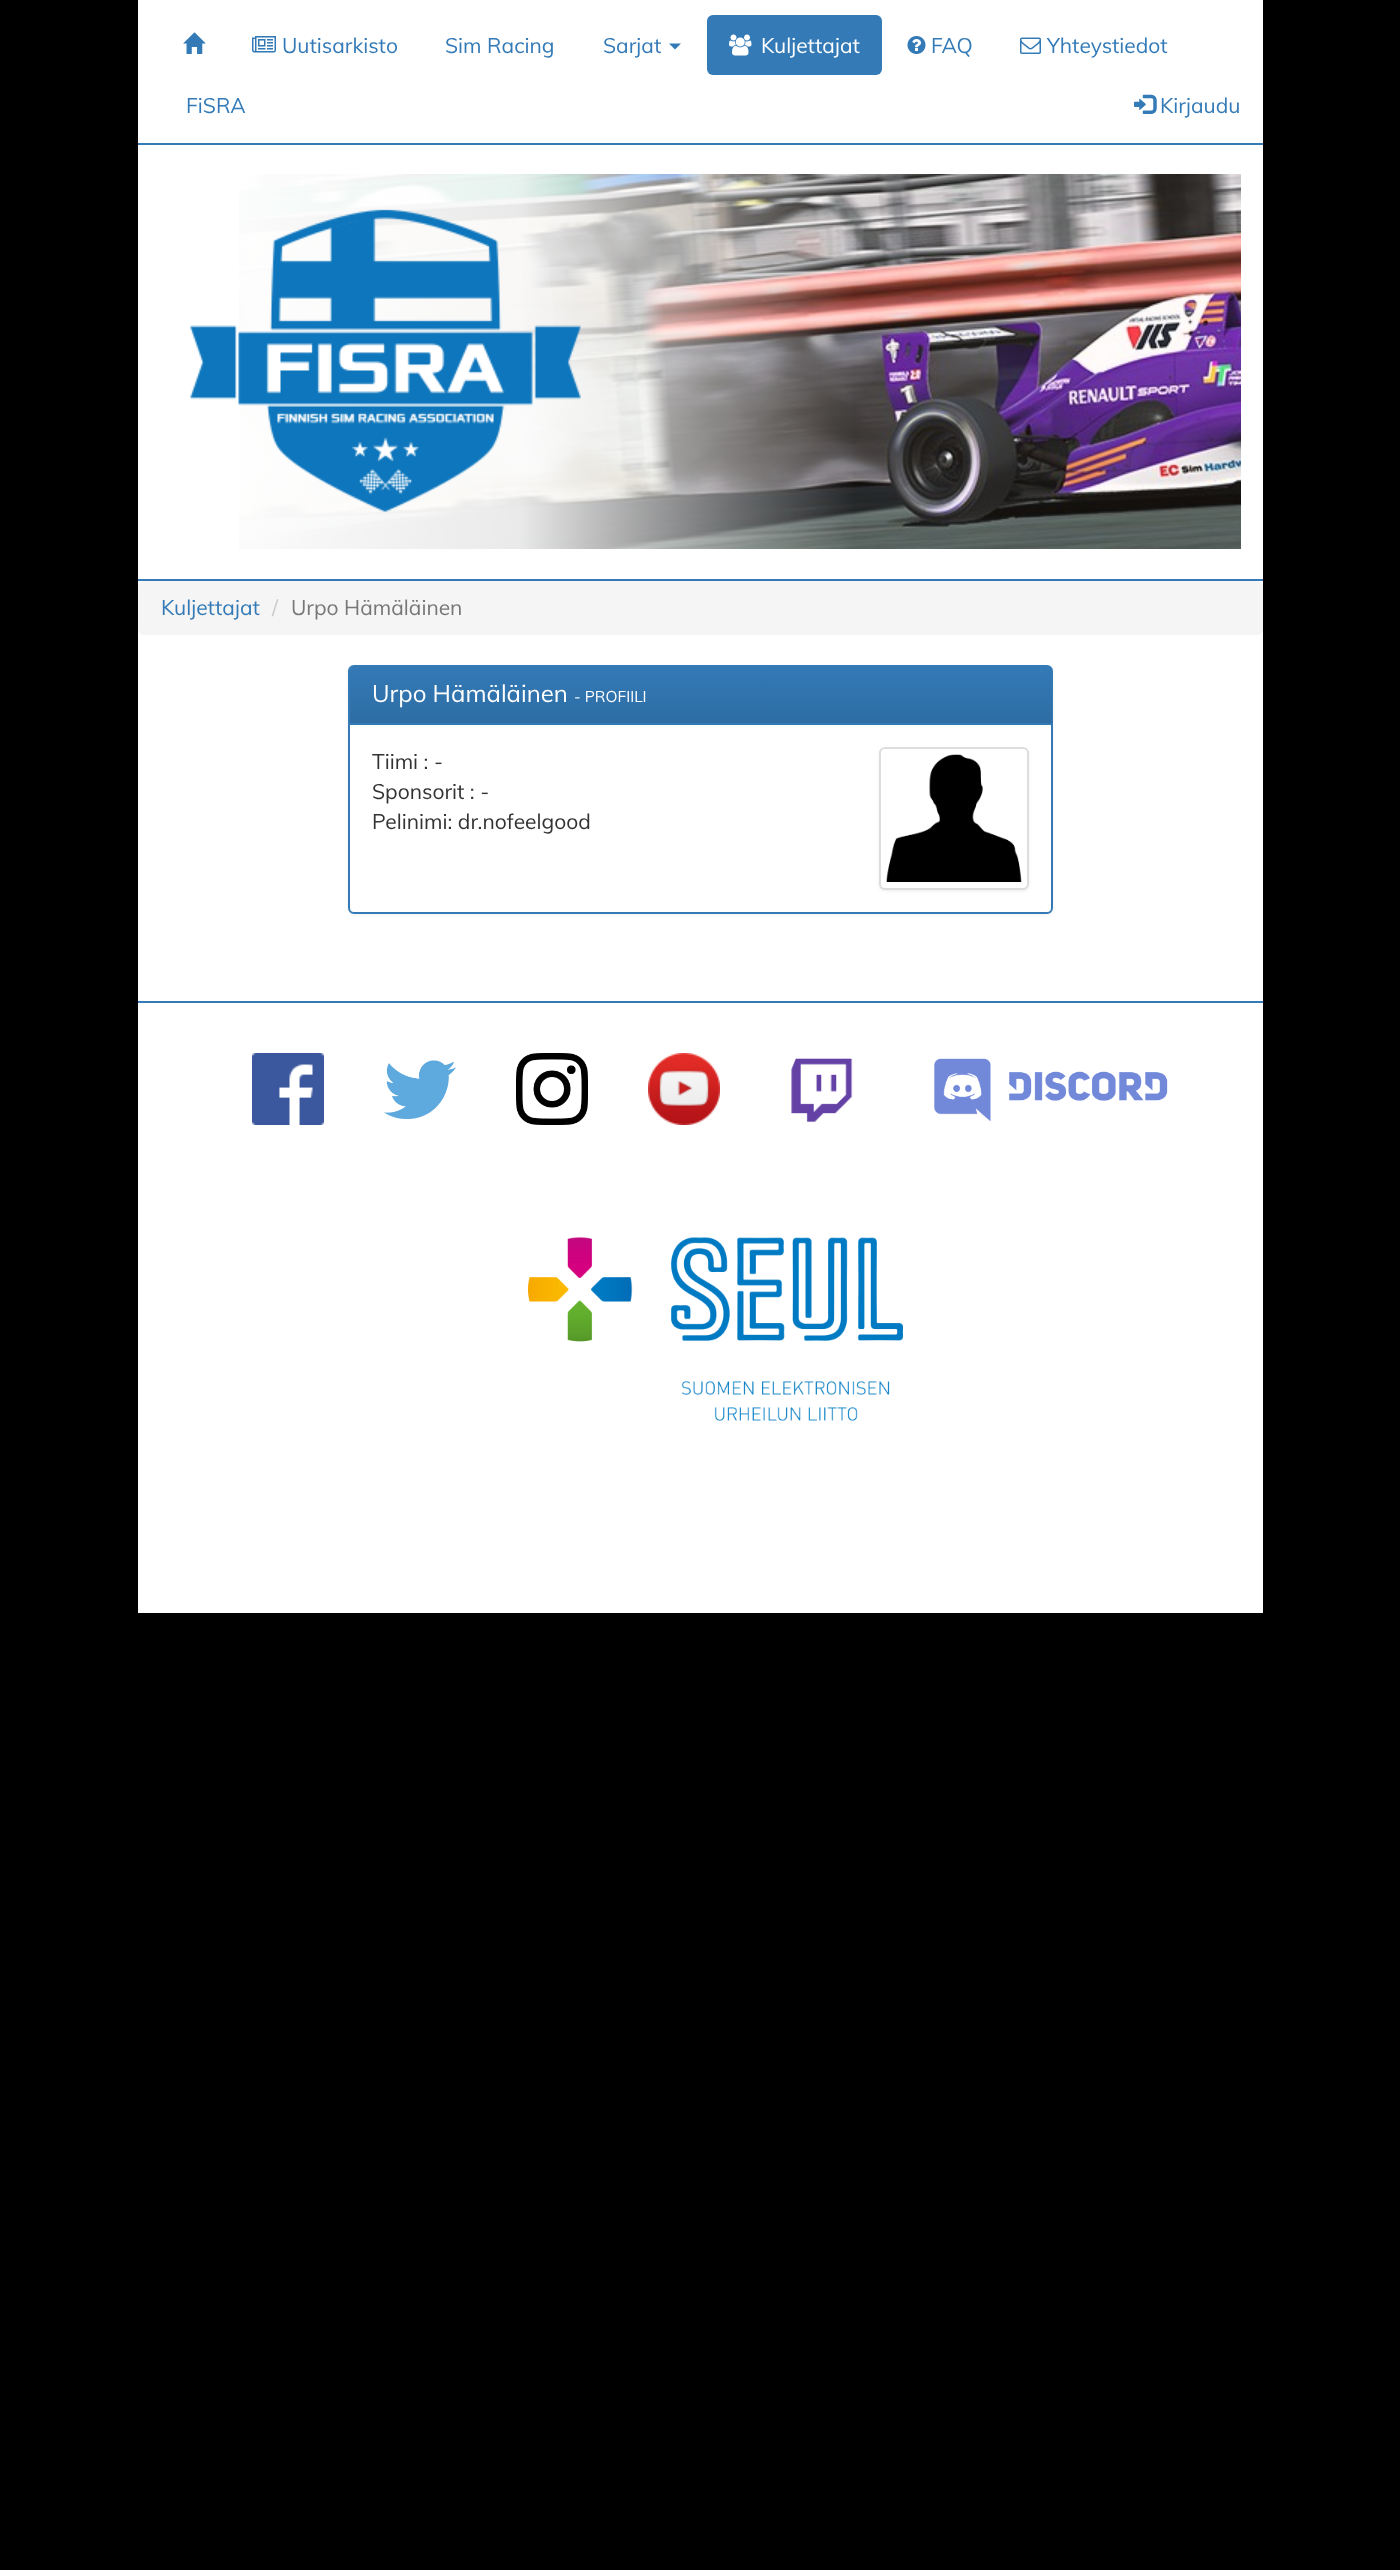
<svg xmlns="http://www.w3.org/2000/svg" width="1400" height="2570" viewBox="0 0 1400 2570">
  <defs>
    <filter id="blur1" x="-50%" y="-200%" width="200%" height="500%"><feGaussianBlur stdDeviation="1.5"/></filter>
    <linearGradient id="g1" gradientUnits="userSpaceOnUse" x1="701" y1="666" x2="701" y2="723"><stop offset="0" stop-color="#337ab7"/><stop offset="1" stop-color="#2e6da4"/></linearGradient>
  </defs>
  <rect width="100%" height="100%" fill="#000000"/>
  <rect x="138" y="0" width="1125" height="1613" fill="#ffffff"/>
  <image x="183" y="32" width="23" height="22" href="img1.png"/>
  <image x="252" y="36" width="24" height="17" href="img2.png"/>
  <text x="282" y="53" font-family="Muli" font-size="21" fill="#337ab7">Uutisarkisto</text>
  <text x="445" y="53" font-family="Muli" font-size="21" fill="#337ab7">Sim Racing</text>
  <text x="603" y="53" font-family="Muli" font-size="21" fill="#337ab7">Sarjat</text>
  <path d="M669 43.5H681L675 49.5Z" fill="#337ab7"/>
  <rect x="707" y="15" width="175" height="60" rx="6" fill="#337ab7"/>
  <image x="729" y="34" width="23" height="22" href="img3.png"/>
  <text x="761" y="53" font-family="Muli" font-size="21" fill="#ffffff">Kuljettajat</text>
  <image x="907" y="36" width="19" height="18" href="img4.png"/>
  <text x="931" y="53" font-family="Muli" font-size="21" fill="#337ab7">FAQ</text>
  <image x="1020" y="37" width="21" height="17" href="img5.png"/>
  <text x="1047" y="53" font-family="Muli" font-size="21" fill="#337ab7">Yhteystiedot</text>
  <text x="186" y="113" font-family="Muli" font-size="21" fill="#337ab7">FiSRA</text>
  <image x="1134" y="94" width="23" height="20" href="img6.png"/>
  <text x="1160" y="113" font-family="Muli" font-size="21" fill="#337ab7">Kirjaudu</text>
  <rect x="138" y="143" width="1125" height="2" fill="#337ab7"/>
  <image x="239" y="174" width="1002" height="375" href="img7.png"/>
  <image x="190" y="209" width="391" height="303" href="img8.png"/>
  <rect x="138" y="579" width="1125" height="2" fill="#337ab7"/>
  <rect x="138" y="581" width="1125" height="54" rx="6" fill="#f5f5f5"/>
  <text x="161" y="615" font-family="Muli" font-size="21" fill="#337ab7">Kuljettajat</text>
  <text x="272" y="615" font-family="Muli" font-size="21" fill="#cccccc">/</text>
  <text x="291" y="615" font-family="Muli" font-size="21" fill="#777777">Urpo Hämäläinen</text>
  <rect x="348" y="666" width="705" height="249" rx="6" fill="#000000" fill-opacity="0.05" filter="url(#blur1)"/>
  <rect x="349" y="666" width="703" height="247" rx="5" fill="#ffffff" stroke="#337ab7" stroke-width="2"/>
  <path d="M355 666H1047C1050 666 1052 668 1052 671V725H350V671C350 668 352 666 355 666Z" fill="#337ab7"/>
  <path d="M355 666H1047C1050 666 1052 668 1052 671V723H350V671C350 668 352 666 355 666Z" fill="url(#g1)"/>
  <text x="372" y="702" font-family="Muli" font-size="24" fill="#ffffff">Urpo Hämäläinen</text>
  <text x="574" y="702" font-family="Muli" font-size="15.5" fill="#ffffff">- PROFIILI</text>
  <text x="372" y="769" font-family="Muli" font-size="21" fill="#333333">Tiimi : -</text>
  <text x="372" y="799" font-family="Muli" font-size="21" fill="#333333">Sponsorit : -</text>
  <text x="372" y="829" font-family="Muli" font-size="21" fill="#333333">Pelinimi: dr.nofeelgood</text>
  <rect x="879" y="749" width="150" height="142" rx="6" fill="#000000" fill-opacity="0.07" filter="url(#blur1)"/>
  <rect x="880" y="748" width="148" height="141" rx="5" fill="#ffffff" stroke="#dddddd" stroke-width="2"/>
  <image x="886" y="754" width="136" height="128" href="img9.png"/>
  <rect x="138" y="1001" width="1125" height="2" fill="#337ab7"/>
  <image x="252" y="1053" width="72" height="72" href="img10.png"/>
  <image x="384" y="1060" width="72" height="59" href="img11.png"/>
  <image x="516" y="1053" width="72" height="72" href="img12.png"/>
  <image x="648" y="1053" width="72" height="72" href="img13.png"/>
  <image x="791" y="1058" width="62" height="64" href="img14.png"/>
  <image x="934" y="1058" width="234" height="63" href="img15.png"/>
  <image x="528" y="1237" width="375" height="184" href="img16.png"/>
</svg>
